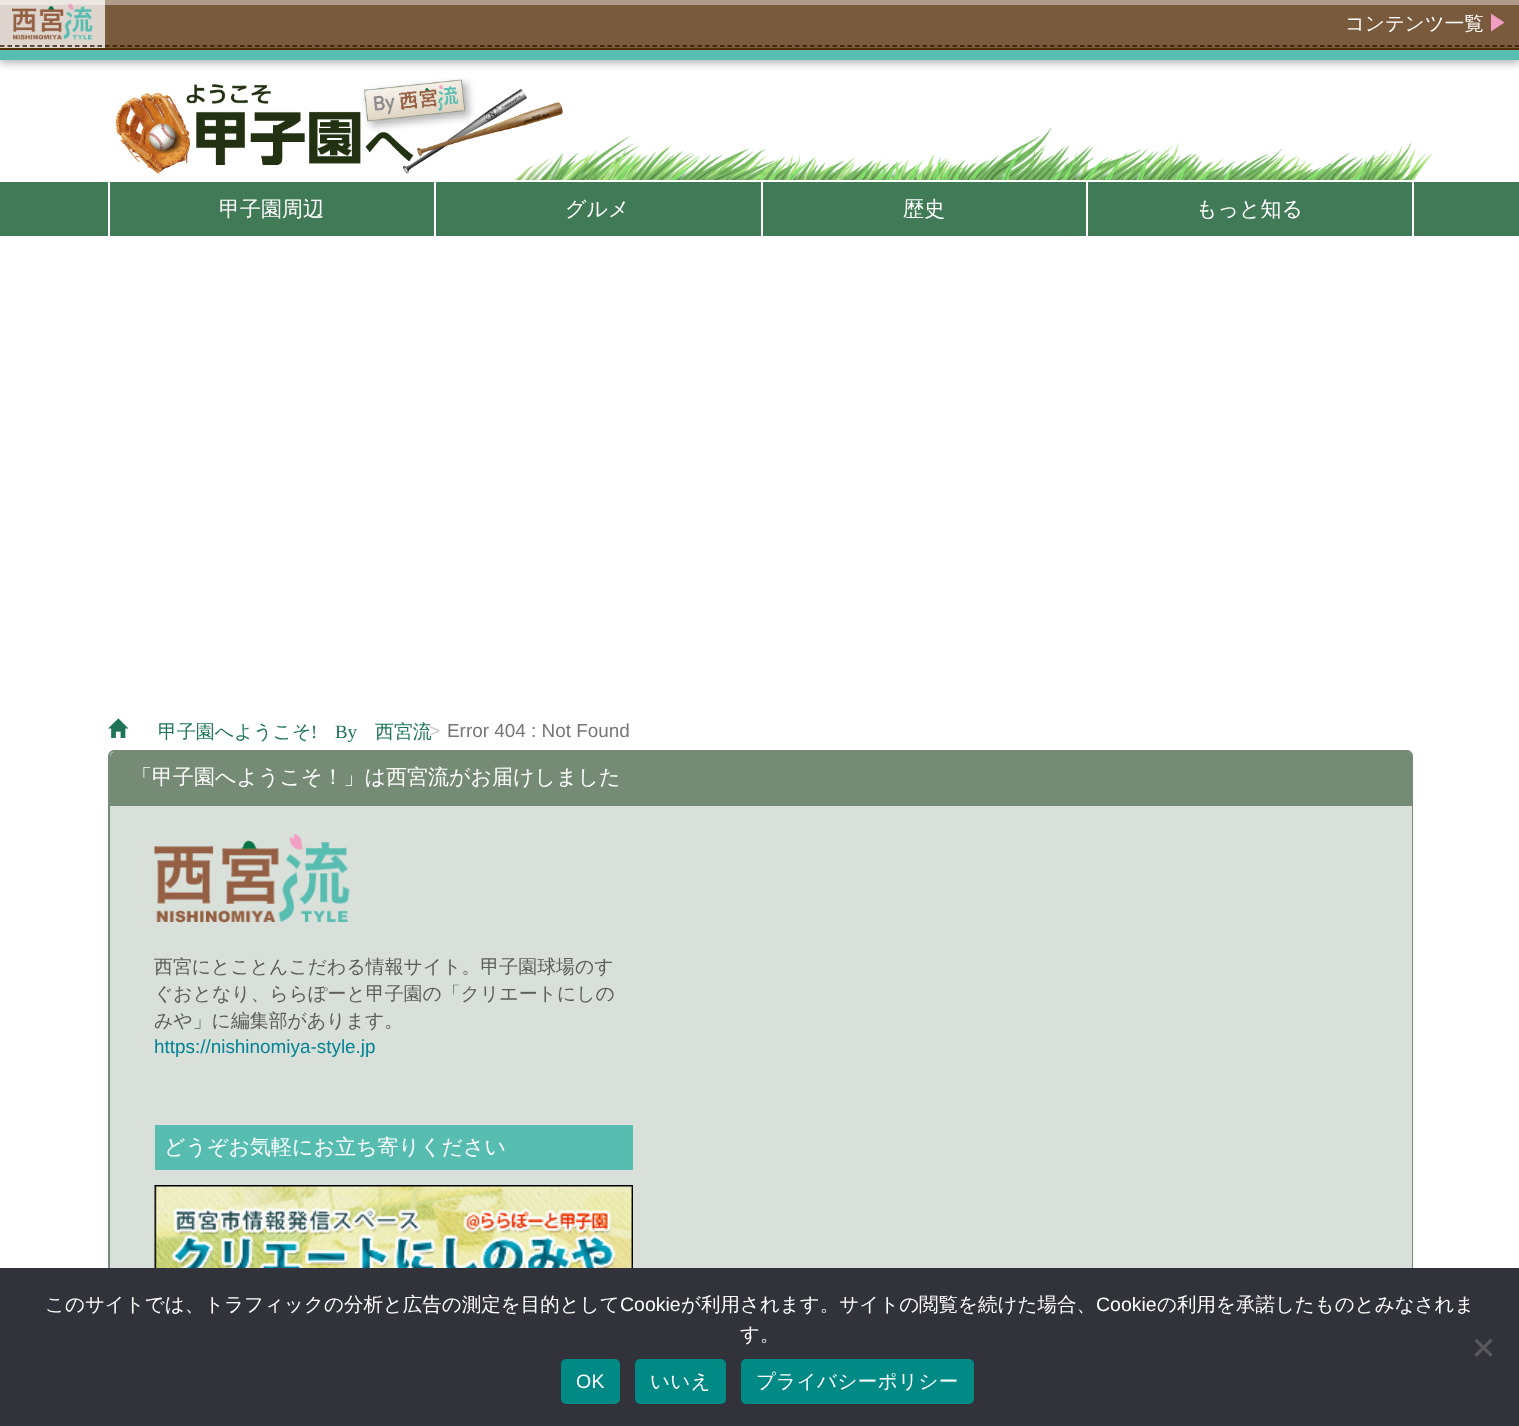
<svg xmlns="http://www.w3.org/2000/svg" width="1519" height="1426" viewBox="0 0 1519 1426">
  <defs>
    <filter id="blur1" x="-50%" y="-200%" width="200%" height="500%"><feGaussianBlur stdDeviation="4.5"/></filter>
  </defs>
  <rect width="100%" height="100%" fill="#ffffff"/>
  <rect x="0" y="3" width="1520" height="60" fill="#000000" fill-opacity="0.3" filter="url(#blur1)"/>
  <rect x="0" y="50" width="1519" height="10" fill="#57bdb1"/>
  <rect x="105" y="0" width="1414" height="5" fill="#af9c8a"/>
  <rect x="0" y="0" width="105" height="5" fill="#ebe6e2"/>
  <rect x="0" y="5" width="105" height="43" fill="#ded6ce"/>
  <image x="12" y="3" width="81" height="37" href="img1.png"/>
  <rect x="105" y="5" width="1414" height="43" fill="#795a3c"/>
  <rect x="0" y="48" width="1519" height="2" fill="#542f0a"/>
  <text x="1345" y="30" font-family="WenQuanYi Zen Hei" font-size="19.5" font-weight="500" fill="#ffffff">コンテンツ一覧</text>
  <path d="M1491 31.5V13.5L1504.5 22.5Z" fill="#f19ec2"/>
  <path d="M0 46H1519.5" fill="none" stroke="#321807" stroke-width="1.5" stroke-dasharray="4.5 3"/>
  <image x="514" y="127" width="919" height="53" href="img2.png"/>
  <image x="115" y="78" width="448" height="96" href="img3.png"/>
  <rect x="0" y="182" width="1519" height="54" fill="#417a56"/>
  <rect x="108" y="182" width="2" height="54" fill="#ffffff"/>
  <text x="219" y="216" font-family="WenQuanYi Zen Hei" font-size="21" font-weight="500" fill="#ffffff">甲子園周辺</text>
  <rect x="434" y="182" width="2" height="54" fill="#ffffff"/>
  <text x="565" y="216" font-family="WenQuanYi Zen Hei" font-size="21" font-weight="500" fill="#ffffff">グルメ</text>
  <rect x="761" y="182" width="2" height="54" fill="#ffffff"/>
  <text x="903" y="216" font-family="WenQuanYi Zen Hei" font-size="21" font-weight="500" fill="#ffffff">歴史</text>
  <rect x="1412" y="182" width="2" height="54" fill="#ffffff"/>
  <rect x="1086" y="182" width="2" height="54" fill="#ffffff"/>
  <text x="1196" y="216" font-family="WenQuanYi Zen Hei" font-size="21" font-weight="500" fill="#ffffff">もっと知る</text>
  <image x="108" y="718" width="21" height="20" href="img4.png"/>
  <text x="158" y="738" font-family="WenQuanYi Zen Hei" font-size="18.9" font-weight="500" fill="#1d7556">甲子園へようこそ</text>
  <text x="311" y="738" word-spacing="13" font-family="Liberation Serif" font-size="18.9" fill="#1d7556">! By</text>
  <text x="429" y="737" font-family="Liberation Sans" font-size="18.9" fill="#cccccc">&gt;</text>
  <text x="375" y="738" font-family="WenQuanYi Zen Hei" font-size="18.9" font-weight="500" fill="#1d7556">西宮流</text>
  <text x="447" y="737" font-family="Liberation Sans" font-size="18.9" fill="#777777">Error 404 : Not Found</text>
  <rect x="109" y="751" width="1303" height="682" rx="5" fill="none" stroke="#758b75" stroke-width="2"/>
  <path d="M115 752H1407C1410 752 1412 754 1412 757V806H110V757C110 754 112 752 115 752Z" fill="#758b75"/>
  <text x="131" y="784" font-family="WenQuanYi Zen Hei" font-size="21" font-weight="500" fill="#ffffff">「甲子園へようこそ！」は西宮流がお届けしました</text>
  <rect x="110" y="806" width="1302" height="462" fill="#d9dfd9"/>
  <image x="154" y="834" width="196" height="89" href="img5.png"/>
  <text x="154" y="973" font-family="WenQuanYi Zen Hei" font-size="18.9" font-weight="500" fill="#5c5c5c">西宮にとことんこだわる情報サイト。甲子園球場のす</text>
  <text x="154" y="1000" font-family="WenQuanYi Zen Hei" font-size="18.9" font-weight="500" fill="#5c5c5c">ぐおとなり、ららぽーと甲子園の「クリエートにしの</text>
  <text x="154" y="1027" font-family="WenQuanYi Zen Hei" font-size="18.9" font-weight="500" fill="#5c5c5c">みや」に編集部があります。</text>
  <text x="154" y="1053" font-family="Liberation Sans" font-size="18.9" fill="#038497">https://nishinomiya-style.jp</text>
  <rect x="155" y="1125" width="478" height="45" fill="#57bdb1"/>
  <text x="164" y="1154" font-family="WenQuanYi Zen Hei" font-size="21" font-weight="500" fill="#ffffff">どうぞお気軽にお立ち寄りください</text>
  <image x="154" y="1185" width="479" height="83" href="img6.png"/>
  <rect x="0" y="1268" width="1519" height="158" fill="#32323a"/>
  <text x="45" y="1311" font-family="WenQuanYi Zen Hei" font-size="19.5" font-weight="500" fill="#ffffff">このサイトでは、トラフィックの分析と広告の測定を目的として</text>
  <text x="620" y="1311" font-family="Liberation Sans" font-size="19.5" fill="#ffffff">Cookie</text>
  <text x="681" y="1311" font-family="WenQuanYi Zen Hei" font-size="19.5" font-weight="500" fill="#ffffff">が利用されます。サイトの閲覧を続けた場合、</text>
  <text x="1096" y="1311" font-family="Liberation Sans" font-size="19.5" fill="#ffffff">Cookie</text>
  <text x="1157" y="1311" font-family="WenQuanYi Zen Hei" font-size="19.5" font-weight="500" fill="#ffffff">の利用を承諾したものとみなされま</text>
  <text x="740" y="1341" font-family="WenQuanYi Zen Hei" font-size="19.5" font-weight="500" fill="#ffffff">す。</text>
  <path d="M1490.5 1338.5L1492.5 1341L1476.5 1357L1474.5 1354.5Z" fill="#59595d"/>
  <path d="M1474.5 1341L1476.5 1338.5L1492.5 1354.5L1490.5 1357Z" fill="#59595d"/>
  <rect x="561" y="1359" width="59" height="45" rx="5" fill="#008985"/>
  <text x="576" y="1388" font-family="Liberation Sans" font-size="19.5" letter-spacing="0.4" fill="#ffffff">OK</text>
  <rect x="635" y="1359" width="91" height="45" rx="5" fill="#008985"/>
  <text x="650" y="1388" font-family="WenQuanYi Zen Hei" font-size="19.5" font-weight="500" letter-spacing="0.4" fill="#ffffff">いいえ</text>
  <rect x="741" y="1359" width="233" height="45" rx="5" fill="#008985"/>
  <text x="756" y="1388" font-family="WenQuanYi Zen Hei" font-size="19.5" font-weight="500" letter-spacing="0.4" fill="#ffffff">プライバシーポリシー</text>
</svg>
